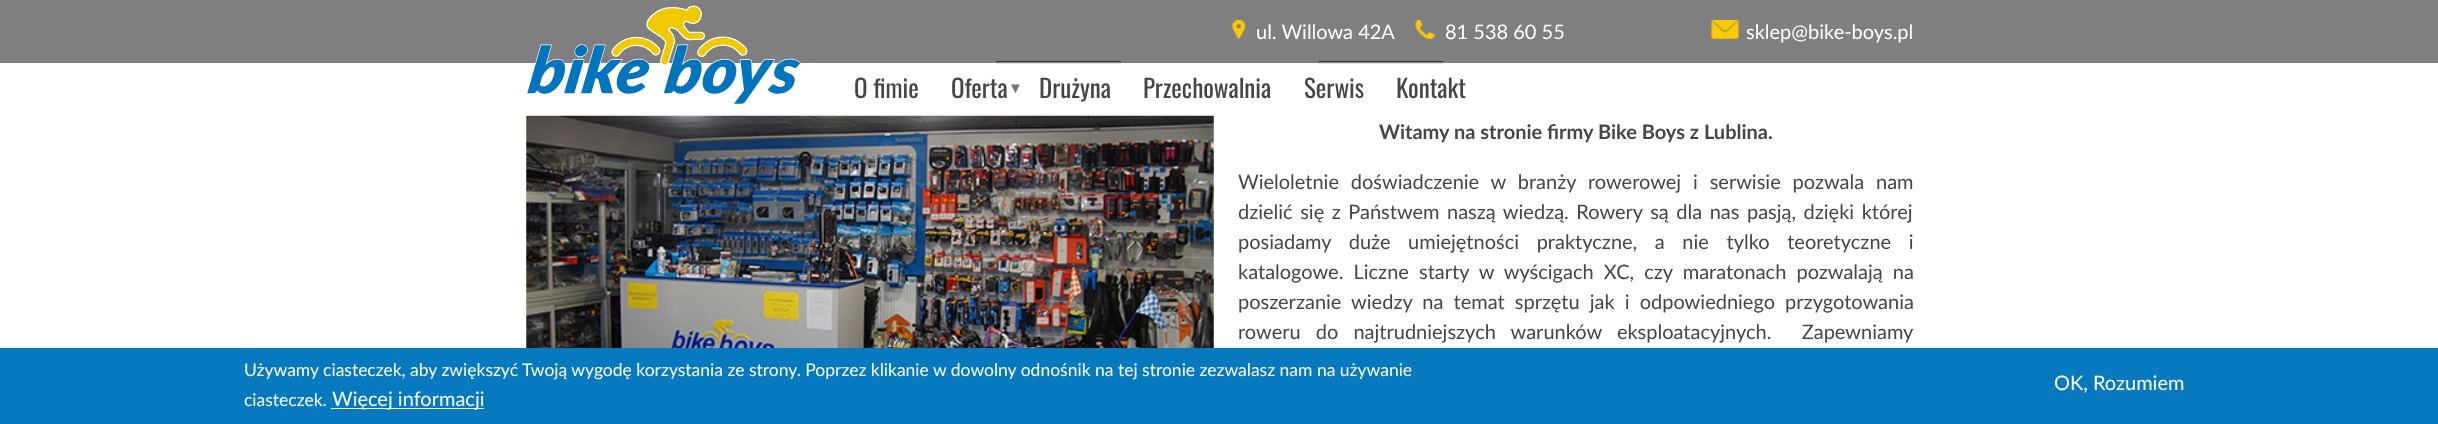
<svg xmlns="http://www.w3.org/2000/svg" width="2438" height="424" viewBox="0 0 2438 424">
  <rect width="100%" height="100%" fill="#ffffff"/>
  <rect x="996" y="61" width="125" height="1" fill="#777777"/>
  <rect x="1318" y="61" width="125" height="1" fill="#777777"/>
  <rect x="0" y="0" width="2438" height="63" fill="#000000" fill-opacity="0.5"/>
  <image x="1231" y="20" width="15" height="19" href="img1.png"/>
  <text x="1256" y="39" font-family="Lato" font-size="20" fill="#ffffff">ul. Willowa 42A</text>
  <image x="1415" y="20" width="20" height="19" href="img2.png"/>
  <text x="1445" y="39" font-family="Lato" font-size="20" fill="#ffffff">81 538 60 55</text>
  <image x="1711" y="20" width="28" height="19" href="img3.png"/>
  <text x="1746" y="39" font-family="Lato" font-size="20" fill="#ffffff">sklep@bike-boys.pl</text>
  <rect x="996" y="63" width="125" height="1" fill="#777777"/>
  <rect x="1318" y="63" width="125" height="1" fill="#777777"/>
  <rect x="996" y="63" width="447" height="1" fill="#ffffff" fill-opacity="0.8"/>
  <image x="527" y="5" width="274" height="99" href="img4.png"/>
  <text x="854" y="98" font-family="Oswald" font-size="25" fill="#464646">O fimie</text>
  <text x="951" y="98" font-family="Oswald" font-size="25" fill="#464646">Oferta</text>
  <text x="1008" y="93" font-family="Liberation Sans" font-size="15" fill="#747474">▼</text>
  <text x="1039" y="98" font-family="Oswald" font-size="25" fill="#464646">Drużyna</text>
  <text x="1143" y="98" font-family="Oswald" font-size="25" fill="#464646">Przechowalnia</text>
  <text x="1304" y="98" font-family="Oswald" font-size="25" fill="#464646">Serwis</text>
  <text x="1396" y="98" font-family="Oswald" font-size="25" fill="#464646">Kontakt</text>
  <image x="526" y="115" width="688" height="233" href="img5.png"/>
  <text x="1379" y="139" font-family="Lato" font-size="20" font-weight="bold" fill="#464646">Witamy na stronie firmy Bike Boys z Lublina.</text>
  <text x="1238" y="189" word-spacing="6.75" font-family="Lato" font-size="20" fill="#464646">Wieloletnie doświadczenie w branży rowerowej i serwisie pozwala nam</text>
  <text x="1238" y="219" word-spacing="2.4" font-family="Lato" font-size="20" fill="#464646">dzielić się z Państwem naszą wiedzą. Rowery są dla nas pasją, dzięki której</text>
  <text x="1238" y="249" word-spacing="12.5" font-family="Lato" font-size="20" fill="#464646">posiadamy duże umiejętności praktyczne, a nie tylko teoretyczne i</text>
  <text x="1238" y="279" word-spacing="5" font-family="Lato" font-size="20" fill="#464646">katalogowe. Liczne starty w wyścigach XC, czy maratonach pozwalają na</text>
  <text x="1238" y="309" word-spacing="5" font-family="Lato" font-size="20" fill="#464646">poszerzanie wiedzy na temat sprzętu jak i odpowiedniego przygotowania</text>
  <text x="1238" y="339" word-spacing="10" font-family="Lato" font-size="20" fill="#464646" xml:space="preserve">roweru do najtrudniejszych warunków eksploatacyjnych.  Zapewniamy</text>
  <rect x="0" y="348" width="2438" height="76" fill="#0779bf"/>
  <text x="244" y="376" font-family="Lato" font-size="17.5" fill="#ffffff">Używamy ciasteczek, aby zwiększyć Twoją wygodę korzystania ze strony. Poprzez klikanie w dowolny odnośnik na tej stronie zezwalasz nam na używanie</text>
  <text x="244" y="406" font-family="Lato" font-size="17.5" fill="#ffffff">ciasteczek.</text>
  <rect x="331" y="408" width="153" height="1" fill="#ffffff"/>
  <text x="332" y="406" font-family="Lato" font-size="20" fill="#ffffff">Więcej informacji</text>
  <text x="2054" y="390" font-family="Lato" font-size="20" fill="#ffffff">OK, Rozumiem</text>
</svg>
